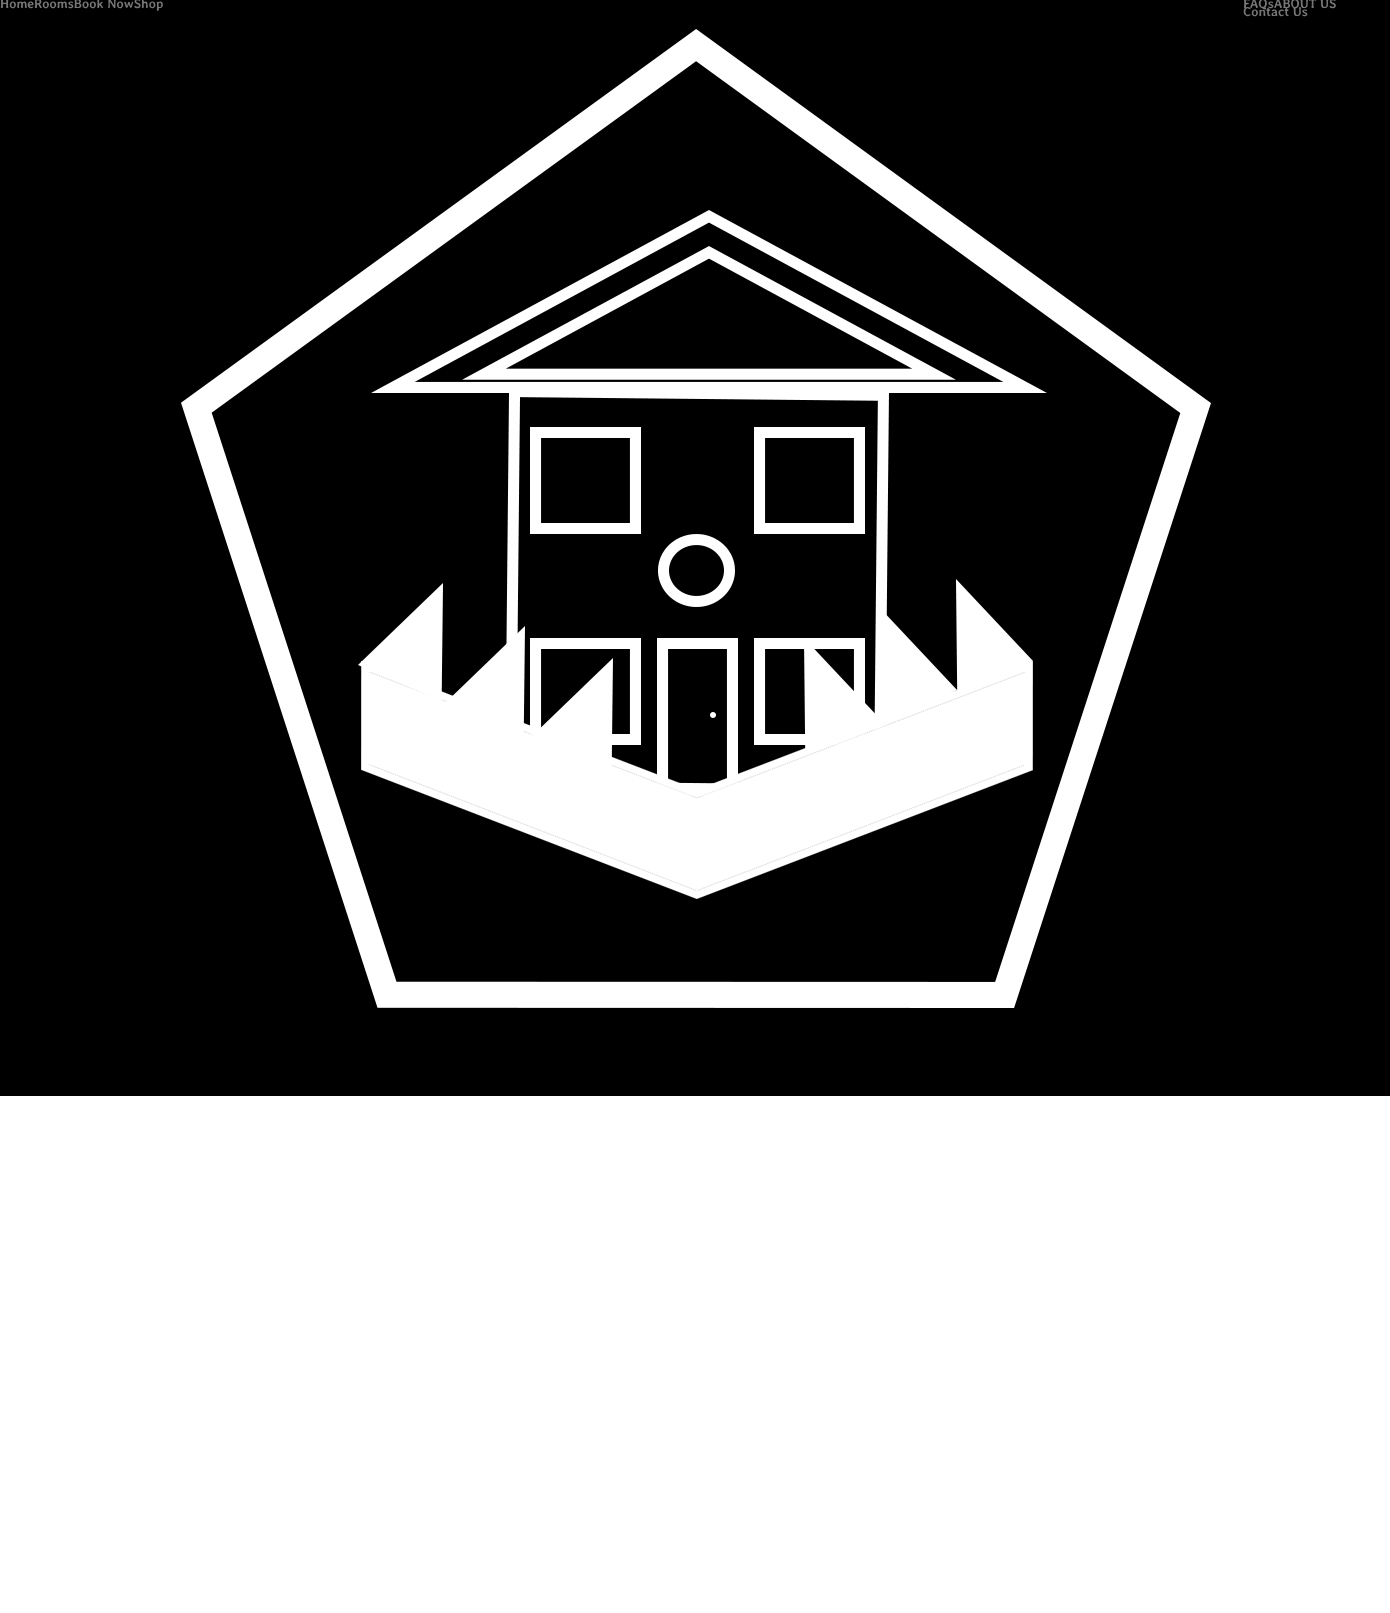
<svg xmlns="http://www.w3.org/2000/svg" width="1390" height="1613" viewBox="0 0 1390 1613">
  <rect width="100%" height="100%" fill="#ffffff"/>
  <rect x="0" y="0" width="1390" height="1096" fill="#000000"/>
  <text x="0" y="8" font-family="Averia Libre" font-size="13" font-weight="bold" fill="#777777">HomeRoomsBook NowShop</text>
  <text x="1243" y="8" font-family="Averia Libre" font-size="13" font-weight="bold" fill="#777777">FAQsABOUT US</text>
  <text x="1243" y="16" font-family="Averia Libre" font-size="13" font-weight="bold" fill="#777777">Contact Us</text>
  <image x="181" y="29" width="1030" height="979" href="img1.png"/>
</svg>
